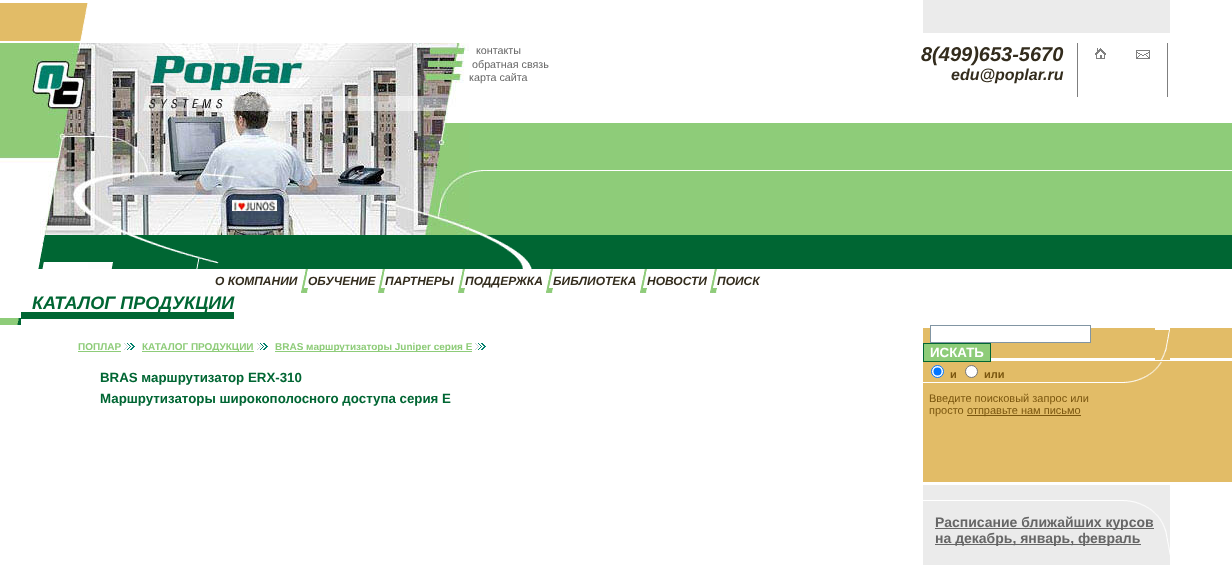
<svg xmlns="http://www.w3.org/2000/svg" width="1232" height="565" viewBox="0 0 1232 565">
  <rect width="100%" height="100%" fill="#ffffff"/>
  <image x="0" y="3" width="88" height="38" href="img1.png"/>
  <rect x="923" y="0" width="247" height="33" fill="#ebebeb"/>
  <image x="0" y="43" width="469" height="192" href="img2.png"/>
  <text x="476" y="54" font-family="Liberation Sans" font-size="10.75" fill="#666666">контакты</text>
  <text x="472" y="68" font-family="Liberation Sans" font-size="10.75" fill="#666666">обратная связь</text>
  <text x="469" y="81" font-family="Liberation Sans" font-size="10.75" fill="#666666">карта сайта</text>
  <text x="921" y="61" font-family="Liberation Sans" font-size="20" font-weight="bold" font-style="italic" fill="#332c1d">8(499)653-5670</text>
  <text x="951" y="80" font-family="Liberation Sans" font-size="16" font-weight="bold" font-style="italic" fill="#332c1d">edu@poplar.ru</text>
  <rect x="1077" y="43" width="1" height="54" fill="#7f7f7f"/>
  <image x="1095" y="48" width="11" height="11" href="img3.png"/>
  <image x="1136" y="50" width="14" height="9" href="img4.png"/>
  <rect x="1167" y="43" width="1" height="54" fill="#7f7f7f"/>
  <rect x="469" y="123" width="763" height="35" fill="#8ecc79"/>
  <image x="469" y="158" width="763" height="77" href="img5.png"/>
  <image x="469" y="170" width="18" height="65" href="img6.png"/>
  <image x="38" y="235" width="7" height="34" href="img7.png"/>
  <rect x="45" y="235" width="43" height="27" fill="#006633"/>
  <rect x="219" y="235" width="1013" height="34" fill="#006633"/>
  <image x="88" y="235" width="131" height="34" href="img8.png"/>
  <image x="480" y="235" width="52" height="34" href="img9.png"/>
  <text x="215" y="285" font-family="Liberation Sans" font-size="12" font-weight="bold" font-style="italic" fill="#332c1d">О КОМПАНИИ</text>
  <image x="301" y="269" width="7" height="24" href="img10.png"/>
  <text x="308" y="285" font-family="Liberation Sans" font-size="12" font-weight="bold" font-style="italic" fill="#332c1d">ОБУЧЕНИЕ</text>
  <image x="378" y="269" width="7" height="24" href="img10.png"/>
  <text x="385" y="285" font-family="Liberation Sans" font-size="12" font-weight="bold" font-style="italic" fill="#332c1d">ПАРТНЕРЫ</text>
  <image x="458" y="269" width="7" height="24" href="img10.png"/>
  <text x="465" y="285" font-family="Liberation Sans" font-size="12" font-weight="bold" font-style="italic" fill="#332c1d">ПОДДЕРЖКА</text>
  <image x="546" y="269" width="7" height="24" href="img10.png"/>
  <text x="553" y="285" font-family="Liberation Sans" font-size="12" font-weight="bold" font-style="italic" fill="#332c1d">БИБЛИОТЕКА</text>
  <image x="640" y="269" width="7" height="24" href="img10.png"/>
  <text x="647" y="285" font-family="Liberation Sans" font-size="12" font-weight="bold" font-style="italic" fill="#332c1d">НОВОСТИ</text>
  <image x="710" y="269" width="7" height="24" href="img10.png"/>
  <text x="717" y="285" font-family="Liberation Sans" font-size="12" font-weight="bold" font-style="italic" fill="#332c1d">ПОИСК</text>
  <rect x="21" y="312" width="213" height="7" fill="#006633"/>
  <text x="32" y="309" font-family="Liberation Sans" font-size="18" font-weight="bold" font-style="italic" fill="#006633">КАТАЛОГ ПРОДУКЦИИ</text>
  <image x="0" y="318" width="21" height="7" href="img11.png"/>
  <text x="78" y="350" font-family="Liberation Sans" font-size="10" font-weight="bold" fill="#8ecc79">ПОПЛАР</text>
  <rect x="78" y="351" width="43" height="1" fill="#8ecc79"/>
  <image x="124" y="343" width="11" height="7" href="img12.png"/>
  <rect x="142" y="351" width="112" height="1" fill="#8ecc79"/>
  <text x="142" y="350" font-family="Liberation Sans" font-size="10" font-weight="bold" fill="#8ecc79">КАТАЛОГ ПРОДУКЦИИ</text>
  <image x="257" y="343" width="11" height="7" href="img12.png"/>
  <rect x="275" y="351" width="197" height="1" fill="#8ecc79"/>
  <text x="275" y="350" font-family="Liberation Sans" font-size="10" font-weight="bold" fill="#8ecc79">BRAS маршрутизаторы Juniper серия E</text>
  <image x="475" y="343" width="11" height="7" href="img12.png"/>
  <text x="100" y="382" font-family="Liberation Sans" font-size="13.3" font-weight="bold" fill="#006633">BRAS маршрутизатор ERX-310</text>
  <text x="100" y="403" font-family="Liberation Sans" font-size="13.3" font-weight="bold" fill="#006633">Маршрутизаторы широкополосного доступа серия E</text>
  <rect x="923" y="485" width="247" height="80" fill="#ebebeb"/>
  <image x="923" y="325" width="232" height="37" href="img13.png"/>
  <rect x="931" y="328" width="159" height="14" fill="#ffffff"/>
  <rect x="930.5" y="325.5" width="160" height="17" fill="none" stroke="#8195a3"/>
  <rect x="923.5" y="343.5" width="67" height="18" fill="#8ecc79" stroke="#006633"/>
  <text x="930" y="357" font-family="Liberation Sans" font-size="13.3" font-weight="bold" fill="#ffffff">ИСКАТЬ</text>
  <image x="1155" y="325" width="77" height="37" href="img14.png"/>
  <image x="1155" y="328" width="15" height="32" href="img15.png"/>
  <image x="923" y="362" width="232" height="123" href="img16.png"/>
  <circle cx="937.5" cy="371.5" r="6" fill="#ffffff" stroke="#0075ff"/>
  <circle cx="937.5" cy="371.5" r="4" fill="#0075ff"/>
  <text x="950" y="378" font-family="Liberation Sans" font-size="11" font-weight="bold" fill="#7a560f">и</text>
  <circle cx="971.5" cy="371.5" r="6" fill="#ffffff" stroke="#767676"/>
  <text x="984" y="378" font-family="Liberation Sans" font-size="11" font-weight="bold" fill="#7a560f">или</text>
  <text x="929" y="402" font-family="Liberation Sans" font-size="11" fill="#7a560f">Введите поисковый запрос или</text>
  <text x="929" y="414" font-family="Liberation Sans" font-size="11" fill="#7a560f">просто</text>
  <rect x="967" y="415" width="114" height="1" fill="#7a560f"/>
  <text x="967" y="414" font-family="Liberation Sans" font-size="11" fill="#7a560f">отправьте нам письмо</text>
  <image x="1124" y="369" width="31" height="14" href="img17.png"/>
  <image x="1155" y="362" width="77" height="123" href="img18.png"/>
  <image x="1155" y="362" width="7" height="9" href="img19.png"/>
  <image x="923" y="500" width="232" height="14" href="img20.png"/>
  <rect x="1155" y="513" width="1" height="1" fill="#f6f6f6"/>
  <rect x="935" y="528" width="219" height="1" fill="#666666"/>
  <text x="935" y="527" font-family="Liberation Sans" font-size="14" font-weight="bold" fill="#666666">Расписание ближайших курсов</text>
  <rect x="935" y="544" width="206" height="1" fill="#666666"/>
  <text x="935" y="543" font-family="Liberation Sans" font-size="14" font-weight="bold" fill="#666666">на декабрь, январь, февраль</text>
  <image x="1155" y="514" width="15" height="41" href="img21.png"/>
</svg>
